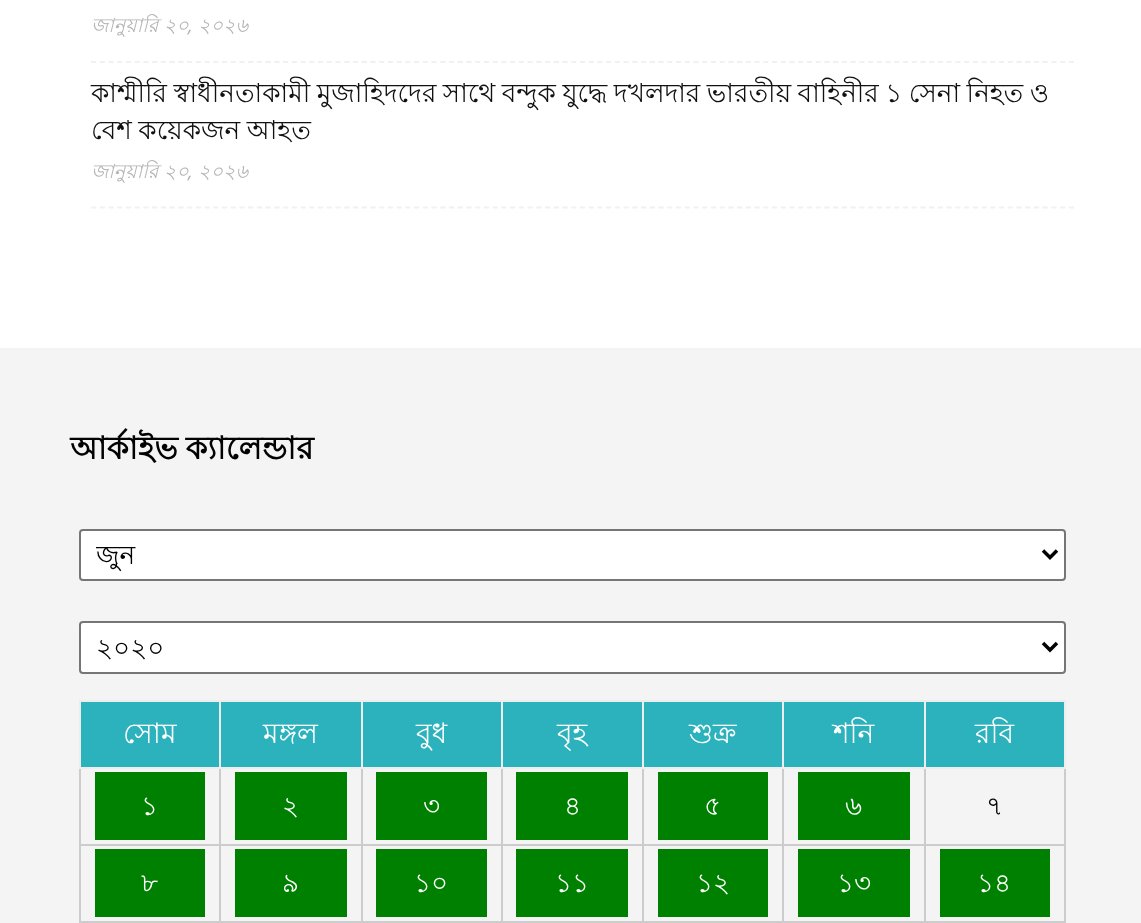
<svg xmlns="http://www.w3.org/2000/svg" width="1141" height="923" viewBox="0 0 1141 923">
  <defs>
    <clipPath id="clip1"><rect x="96" y="536" width="931" height="38"/></clipPath>
  </defs>
  <rect width="100%" height="100%" fill="#ffffff"/>
  <path d="M91 62H1074.5" fill="none" stroke="#f1f1f1" stroke-width="1.8" stroke-dasharray="5.25 3.48"/>
  <text x="91" y="32" font-family="Lohit Bengali" font-size="19.25" font-style="italic" fill="#b5b5b5">জানুয়ারি ২০</text>
  <text x="188" y="32" font-family="Open Sans" font-size="19.25" font-style="italic" fill="#b5b5b5">,</text>
  <text x="198" y="32" font-family="Lohit Bengali" font-size="19.25" font-style="italic" fill="#b5b5b5">২০২৬</text>
  <path d="M91 207.5H1074.5" fill="none" stroke="#f1f1f1" stroke-width="1.8" stroke-dasharray="5.25 3.48"/>
  <text x="91" y="102" word-spacing="-0.75" font-family="Lohit Bengali" font-size="26.25" fill="#111111">কাশ্মীরি স্বাধীনতাকামী মুজাহিদদের সাথে বন্দুক যুদ্ধে দখলদার ভারতীয় বাহিনীর ১ সেনা নিহত ও</text>
  <text x="91" y="139" word-spacing="-0.75" font-family="Lohit Bengali" font-size="26.25" fill="#111111">বেশ কয়েকজন আহত</text>
  <text x="91" y="178" font-family="Lohit Bengali" font-size="19.25" font-style="italic" fill="#b5b5b5">জানুয়ারি ২০</text>
  <text x="188" y="178" font-family="Open Sans" font-size="19.25" font-style="italic" fill="#b5b5b5">,</text>
  <text x="198" y="178" font-family="Lohit Bengali" font-size="19.25" font-style="italic" fill="#b5b5b5">২০২৬</text>
  <rect x="0" y="348" width="1141" height="575" fill="#f4f4f4"/>
  <text x="70" y="459" word-spacing="-1" font-family="Lohit Bengali" font-size="31.5" font-weight="bold" fill="#020202">আর্কাইভ ক্যালেন্ডার</text>
  <rect x="80" y="530" width="985" height="50" rx="3" fill="#ffffff" stroke="#767676" stroke-width="2"/>
  <path d="M1043 550.5L1050 557.5L1057 550.5" fill="none" stroke="#020202" stroke-width="3.5"/>
  <g clip-path="url(#clip1)">
    <text x="96" y="564" font-family="Lohit Bengali" font-size="26.25" fill="#020202">জুন</text>
  </g>
  <rect x="80" y="622" width="985" height="51" rx="3" fill="#ffffff" stroke="#767676" stroke-width="2"/>
  <path d="M1043 643L1050 650L1057 643" fill="none" stroke="#020202" stroke-width="3.5"/>
  <text x="96" y="657" font-family="Lohit Bengali" font-size="26.25" fill="#020202">২০২০</text>
  <rect x="81" y="702" width="138" height="65" fill="#2cb2bc"/>
  <rect x="924" y="700" width="142" height="2" fill="#ededed"/>
  <rect x="924" y="844" width="142" height="2" fill="#cccccc"/>
  <rect x="79" y="921" width="987" height="2" fill="#cccccc"/>
  <rect x="1064" y="767" width="2" height="155" fill="#cccccc"/>
  <rect x="1064" y="700" width="2" height="68" fill="#ededed"/>
  <rect x="924" y="844" width="2" height="78" fill="#cccccc"/>
  <rect x="782" y="844" width="144" height="2" fill="#cccccc"/>
  <rect x="924" y="767" width="2" height="78" fill="#cccccc"/>
  <rect x="924" y="767" width="142" height="2" fill="#ededed"/>
  <rect x="924" y="700" width="2" height="68" fill="#ededed"/>
  <rect x="782" y="700" width="144" height="2" fill="#ededed"/>
  <rect x="782" y="844" width="2" height="78" fill="#cccccc"/>
  <rect x="642" y="844" width="142" height="2" fill="#cccccc"/>
  <rect x="782" y="767" width="2" height="78" fill="#cccccc"/>
  <rect x="782" y="767" width="144" height="2" fill="#ededed"/>
  <rect x="782" y="700" width="2" height="68" fill="#ededed"/>
  <rect x="642" y="700" width="142" height="2" fill="#ededed"/>
  <rect x="642" y="844" width="2" height="78" fill="#cccccc"/>
  <rect x="501" y="844" width="143" height="2" fill="#cccccc"/>
  <rect x="642" y="767" width="2" height="78" fill="#cccccc"/>
  <rect x="642" y="767" width="142" height="2" fill="#ededed"/>
  <rect x="642" y="700" width="2" height="68" fill="#ededed"/>
  <rect x="501" y="700" width="143" height="2" fill="#ededed"/>
  <rect x="501" y="844" width="2" height="78" fill="#cccccc"/>
  <rect x="361" y="844" width="141" height="2" fill="#cccccc"/>
  <rect x="501" y="767" width="2" height="78" fill="#cccccc"/>
  <rect x="501" y="767" width="143" height="2" fill="#ededed"/>
  <rect x="501" y="700" width="2" height="68" fill="#ededed"/>
  <rect x="361" y="700" width="141" height="2" fill="#ededed"/>
  <rect x="361" y="844" width="2" height="78" fill="#cccccc"/>
  <rect x="219" y="844" width="143" height="2" fill="#cccccc"/>
  <rect x="361" y="767" width="2" height="78" fill="#cccccc"/>
  <rect x="361" y="767" width="141" height="2" fill="#ededed"/>
  <rect x="361" y="700" width="2" height="68" fill="#ededed"/>
  <rect x="219" y="700" width="143" height="2" fill="#ededed"/>
  <rect x="219" y="844" width="2" height="78" fill="#cccccc"/>
  <rect x="79" y="844" width="142" height="2" fill="#cccccc"/>
  <rect x="219" y="767" width="2" height="78" fill="#cccccc"/>
  <rect x="219" y="767" width="143" height="2" fill="#ededed"/>
  <rect x="219" y="700" width="2" height="68" fill="#ededed"/>
  <rect x="79" y="700" width="142" height="2" fill="#ededed"/>
  <rect x="79" y="767" width="2" height="155" fill="#cccccc"/>
  <rect x="79" y="767" width="142" height="2" fill="#ededed"/>
  <rect x="79" y="700" width="2" height="68" fill="#ededed"/>
  <text x="123" y="743" font-family="Lohit Bengali" font-size="28" fill="#ffffff">সোম</text>
  <rect x="221" y="702" width="140" height="65" fill="#2cb2bc"/>
  <text x="263" y="743" font-family="Lohit Bengali" font-size="28" fill="#ffffff">মঙ্গল</text>
  <rect x="363" y="702" width="138" height="65" fill="#2cb2bc"/>
  <text x="416" y="743" font-family="Lohit Bengali" font-size="28" fill="#ffffff">বুধ</text>
  <rect x="503" y="702" width="139" height="65" fill="#2cb2bc"/>
  <text x="557" y="743" font-family="Lohit Bengali" font-size="28" fill="#ffffff">বৃহ</text>
  <rect x="644" y="702" width="138" height="65" fill="#2cb2bc"/>
  <text x="689" y="743" font-family="Lohit Bengali" font-size="28" fill="#ffffff">শুক্র</text>
  <rect x="784" y="702" width="140" height="65" fill="#2cb2bc"/>
  <text x="833" y="743" font-family="Lohit Bengali" font-size="28" fill="#ffffff">শনি</text>
  <rect x="926" y="702" width="138" height="65" fill="#2cb2bc"/>
  <text x="975" y="743" font-family="Lohit Bengali" font-size="28" fill="#ffffff">রবি</text>
  <rect x="95" y="772" width="110" height="68" fill="#008000"/>
  <text x="141" y="815" font-family="Lohit Bengali" font-size="26.25" fill="#ffffff">১</text>
  <rect x="235" y="772" width="112" height="68" fill="#008000"/>
  <text x="282" y="815" font-family="Lohit Bengali" font-size="26.25" fill="#ffffff">২</text>
  <rect x="376" y="772" width="111" height="68" fill="#008000"/>
  <text x="423" y="815" font-family="Lohit Bengali" font-size="26.25" fill="#ffffff">৩</text>
  <rect x="516" y="772" width="112" height="68" fill="#008000"/>
  <text x="564" y="815" font-family="Lohit Bengali" font-size="26.25" fill="#ffffff">৪</text>
  <rect x="658" y="772" width="110" height="68" fill="#008000"/>
  <text x="704" y="815" font-family="Lohit Bengali" font-size="26.25" fill="#ffffff">৫</text>
  <rect x="798" y="772" width="112" height="68" fill="#008000"/>
  <text x="845" y="815" font-family="Lohit Bengali" font-size="26.25" fill="#ffffff">৬</text>
  <text x="986" y="815" font-family="Lohit Bengali" font-size="26.25" fill="#020202">৭</text>
  <rect x="95" y="849" width="110" height="68" fill="#008000"/>
  <text x="141" y="892" font-family="Lohit Bengali" font-size="26.25" fill="#ffffff">৮</text>
  <rect x="235" y="849" width="112" height="68" fill="#008000"/>
  <text x="282" y="892" font-family="Lohit Bengali" font-size="26.25" fill="#ffffff">৯</text>
  <rect x="376" y="849" width="111" height="68" fill="#008000"/>
  <text x="414" y="892" font-family="Lohit Bengali" font-size="26.25" fill="#ffffff">১০</text>
  <rect x="516" y="849" width="112" height="68" fill="#008000"/>
  <text x="555" y="892" font-family="Lohit Bengali" font-size="26.25" fill="#ffffff">১১</text>
  <rect x="658" y="849" width="110" height="68" fill="#008000"/>
  <text x="696" y="892" font-family="Lohit Bengali" font-size="26.25" fill="#ffffff">১২</text>
  <rect x="798" y="849" width="112" height="68" fill="#008000"/>
  <text x="837" y="892" font-family="Lohit Bengali" font-size="26.25" fill="#ffffff">১৩</text>
  <rect x="940" y="849" width="110" height="68" fill="#008000"/>
  <text x="977" y="892" font-family="Lohit Bengali" font-size="26.25" fill="#ffffff">১৪</text>
</svg>
